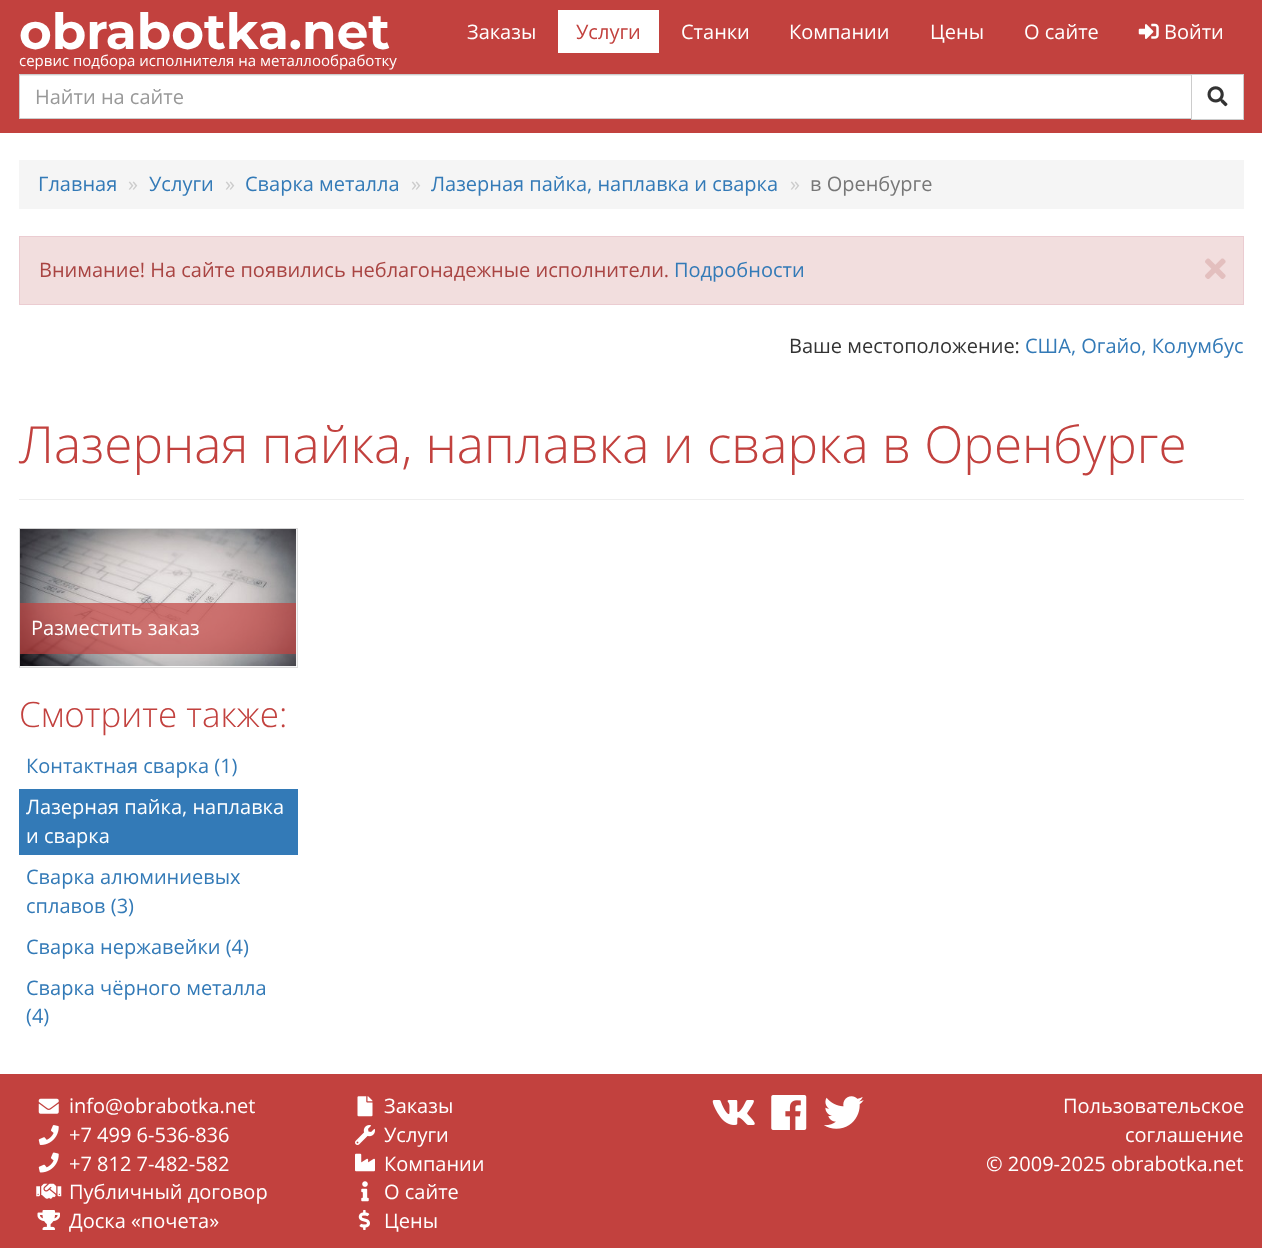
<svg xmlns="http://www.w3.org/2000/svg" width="1262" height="1248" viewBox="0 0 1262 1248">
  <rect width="100%" height="100%" fill="#ffffff"/>
  <rect x="0" y="0" width="1262" height="133" fill="#c2413e"/>
  <text x="19" y="49" font-family="Montserrat" font-size="50" font-weight="100" fill="#ffffff">obrabotka.net</text>
  <text x="19" y="66" font-family="Open Sans" font-size="15" fill="#ffffff">сервис подбора исполнителя на металлообработку</text>
  <text x="467" y="39" font-family="Open Sans" font-size="20" fill="#ffffff">Заказы</text>
  <rect x="558" y="10" width="101" height="43" fill="#ffffff"/>
  <text x="576" y="39" font-family="Open Sans" font-size="20" fill="#c2413e">Услуги</text>
  <text x="681" y="39" font-family="Open Sans" font-size="20" fill="#ffffff">Станки</text>
  <text x="789" y="39" font-family="Open Sans" font-size="20" fill="#ffffff">Компании</text>
  <text x="930" y="39" font-family="Open Sans" font-size="20" fill="#ffffff">Цены</text>
  <text x="1024" y="39" font-family="Open Sans" font-size="20" fill="#ffffff">О сайте</text>
  <image x="1138" y="23" width="21" height="16" href="img1.png"/>
  <text x="1164" y="39" font-family="Open Sans" font-size="20" fill="#ffffff">Войти</text>
  <rect x="20" y="76" width="1171" height="42" fill="#ffffff"/>
  <rect x="20" y="75" width="1171" height="1" fill="#ececec"/>
  <rect x="19.5" y="74.5" width="1173" height="44" fill="none" stroke="#cccccc"/>
  <text x="35" y="104" font-family="Open Sans" font-size="20" fill="#999999">Найти на сайте</text>
  <rect x="1191.5" y="74.5" width="52" height="45" fill="#ffffff" stroke="#cccccc"/>
  <image x="1207" y="86" width="21" height="21" href="img2.png"/>
  <rect x="19" y="160" width="1225" height="49" fill="#f5f5f5"/>
  <text x="38" y="191" font-family="Open Sans" font-size="20" fill="#337ab7">Главная</text>
  <text x="128" y="191" font-family="Open Sans" font-size="20" fill="#cccccc">»</text>
  <text x="149" y="191" font-family="Open Sans" font-size="20" fill="#337ab7">Услуги</text>
  <text x="225" y="191" font-family="Open Sans" font-size="20" fill="#cccccc">»</text>
  <text x="245" y="191" font-family="Open Sans" font-size="20" fill="#337ab7">Сварка металла</text>
  <text x="411" y="191" font-family="Open Sans" font-size="20" fill="#cccccc">»</text>
  <text x="431" y="191" font-family="Open Sans" font-size="20" fill="#337ab7">Лазерная пайка, наплавка и сварка</text>
  <text x="790" y="191" font-family="Open Sans" font-size="20" fill="#cccccc">»</text>
  <text x="810" y="191" font-family="Open Sans" font-size="20" fill="#777777">в Оренбурге</text>
  <rect x="19.5" y="236.5" width="1224" height="68" fill="#f2dede" stroke="#ebccd1"/>
  <text x="39" y="277" font-family="Open Sans" font-size="20" fill="#a94442">Внимание! На сайте появились неблагонадежные исполнители.</text>
  <text x="674" y="277" font-family="Open Sans" font-size="20" fill="#337ab7">Подробности</text>
  <image x="1205" y="258" width="21" height="21" href="img3.png"/>
  <text x="789" y="353" font-family="Open Sans" font-size="20" fill="#333333">Ваше местоположение:</text>
  <text x="1025" y="353" font-family="Open Sans" font-size="20" fill="#337ab7">США, Огайо, Колумбус</text>
  <rect x="19" y="499" width="1225" height="1" fill="#eeeeee"/>
  <text x="19" y="463" font-family="Open Sans" font-size="51.25" font-weight="300" fill="#c2413e">Лазерная пайка, наплавка и сварка в Оренбурге</text>
  <rect x="19.5" y="528.5" width="278" height="139" fill="none" stroke="#dddddd"/>
  <image x="20" y="528" width="277" height="139" href="img4.png"/>
  <rect x="20" y="603" width="276" height="51" fill="#c2413e" fill-opacity="0.7"/>
  <text x="31" y="635" font-family="Open Sans" font-size="20" fill="#ffffff">Разместить заказ</text>
  <text x="19" y="727" font-family="Open Sans" font-size="35" font-weight="300" fill="#c2413e">Смотрите также:</text>
  <text x="26" y="773" font-family="Open Sans" font-size="20" fill="#337ab7">Контактная сварка (1)</text>
  <rect x="19" y="789" width="279" height="66" fill="#337ab7"/>
  <text x="26" y="814" font-family="Open Sans" font-size="20" fill="#ffffff">Лазерная пайка, наплавка</text>
  <text x="26" y="843" font-family="Open Sans" font-size="20" fill="#ffffff">и сварка</text>
  <text x="26" y="884" font-family="Open Sans" font-size="20" fill="#337ab7">Сварка алюминиевых</text>
  <text x="26" y="913" font-family="Open Sans" font-size="20" fill="#337ab7">сплавов (3)</text>
  <text x="26" y="954" font-family="Open Sans" font-size="20" fill="#337ab7">Сварка нержавейки (4)</text>
  <text x="26" y="995" font-family="Open Sans" font-size="20" fill="#337ab7">Сварка чёрного металла</text>
  <text x="26" y="1023" font-family="Open Sans" font-size="20" fill="#337ab7">(4)</text>
  <rect x="0" y="1074" width="1262" height="174" fill="#c2413e"/>
  <image x="38" y="1098" width="21" height="16" href="img5.png"/>
  <text x="69" y="1113" font-family="Open Sans" font-size="20" fill="#ffffff">info@obrabotka.net</text>
  <image x="38" y="1125" width="21" height="20" href="img6.png"/>
  <text x="69" y="1142" font-family="Open Sans" font-size="20" fill="#ffffff">+7 499 6-536-836</text>
  <image x="38" y="1152" width="21" height="21" href="img7.png"/>
  <text x="69" y="1171" font-family="Open Sans" font-size="20" fill="#ffffff">+7 812 7-482-582</text>
  <image x="36" y="1183" width="26" height="16" href="img8.png"/>
  <text x="69" y="1199" font-family="Open Sans" font-size="20" fill="#ffffff">Публичный договор</text>
  <image x="37" y="1210" width="23" height="20" href="img9.png"/>
  <text x="69" y="1228" font-family="Open Sans" font-size="20" fill="#ffffff">Доска «почета»</text>
  <image x="357" y="1096" width="16" height="21" href="img10.png"/>
  <text x="384" y="1113" font-family="Open Sans" font-size="20" fill="#ffffff">Заказы</text>
  <image x="355" y="1125" width="20" height="20" href="img11.png"/>
  <text x="384" y="1142" font-family="Open Sans" font-size="20" fill="#ffffff">Услуги</text>
  <image x="355" y="1153" width="20" height="19" href="img12.png"/>
  <text x="384" y="1171" font-family="Open Sans" font-size="20" fill="#ffffff">Компании</text>
  <image x="361" y="1181" width="8" height="21" href="img13.png"/>
  <text x="384" y="1199" font-family="Open Sans" font-size="20" fill="#ffffff">О сайте</text>
  <image x="358" y="1210" width="12" height="20" href="img14.png"/>
  <text x="384" y="1228" font-family="Open Sans" font-size="20" fill="#ffffff">Цены</text>
  <image x="712" y="1100" width="43" height="25" href="img15.png"/>
  <image x="771" y="1095" width="36" height="35" href="img16.png"/>
  <image x="824" y="1096" width="40" height="33" href="img17.png"/>
  <text x="1063" y="1113" font-family="Open Sans" font-size="20" fill="#ffffff">Пользовательское</text>
  <text x="1125" y="1142" font-family="Open Sans" font-size="20" fill="#ffffff">соглашение</text>
  <text x="986" y="1171" font-family="Open Sans" font-size="20" fill="#ffffff">© 2009-2025 obrabotka.net</text>
</svg>
